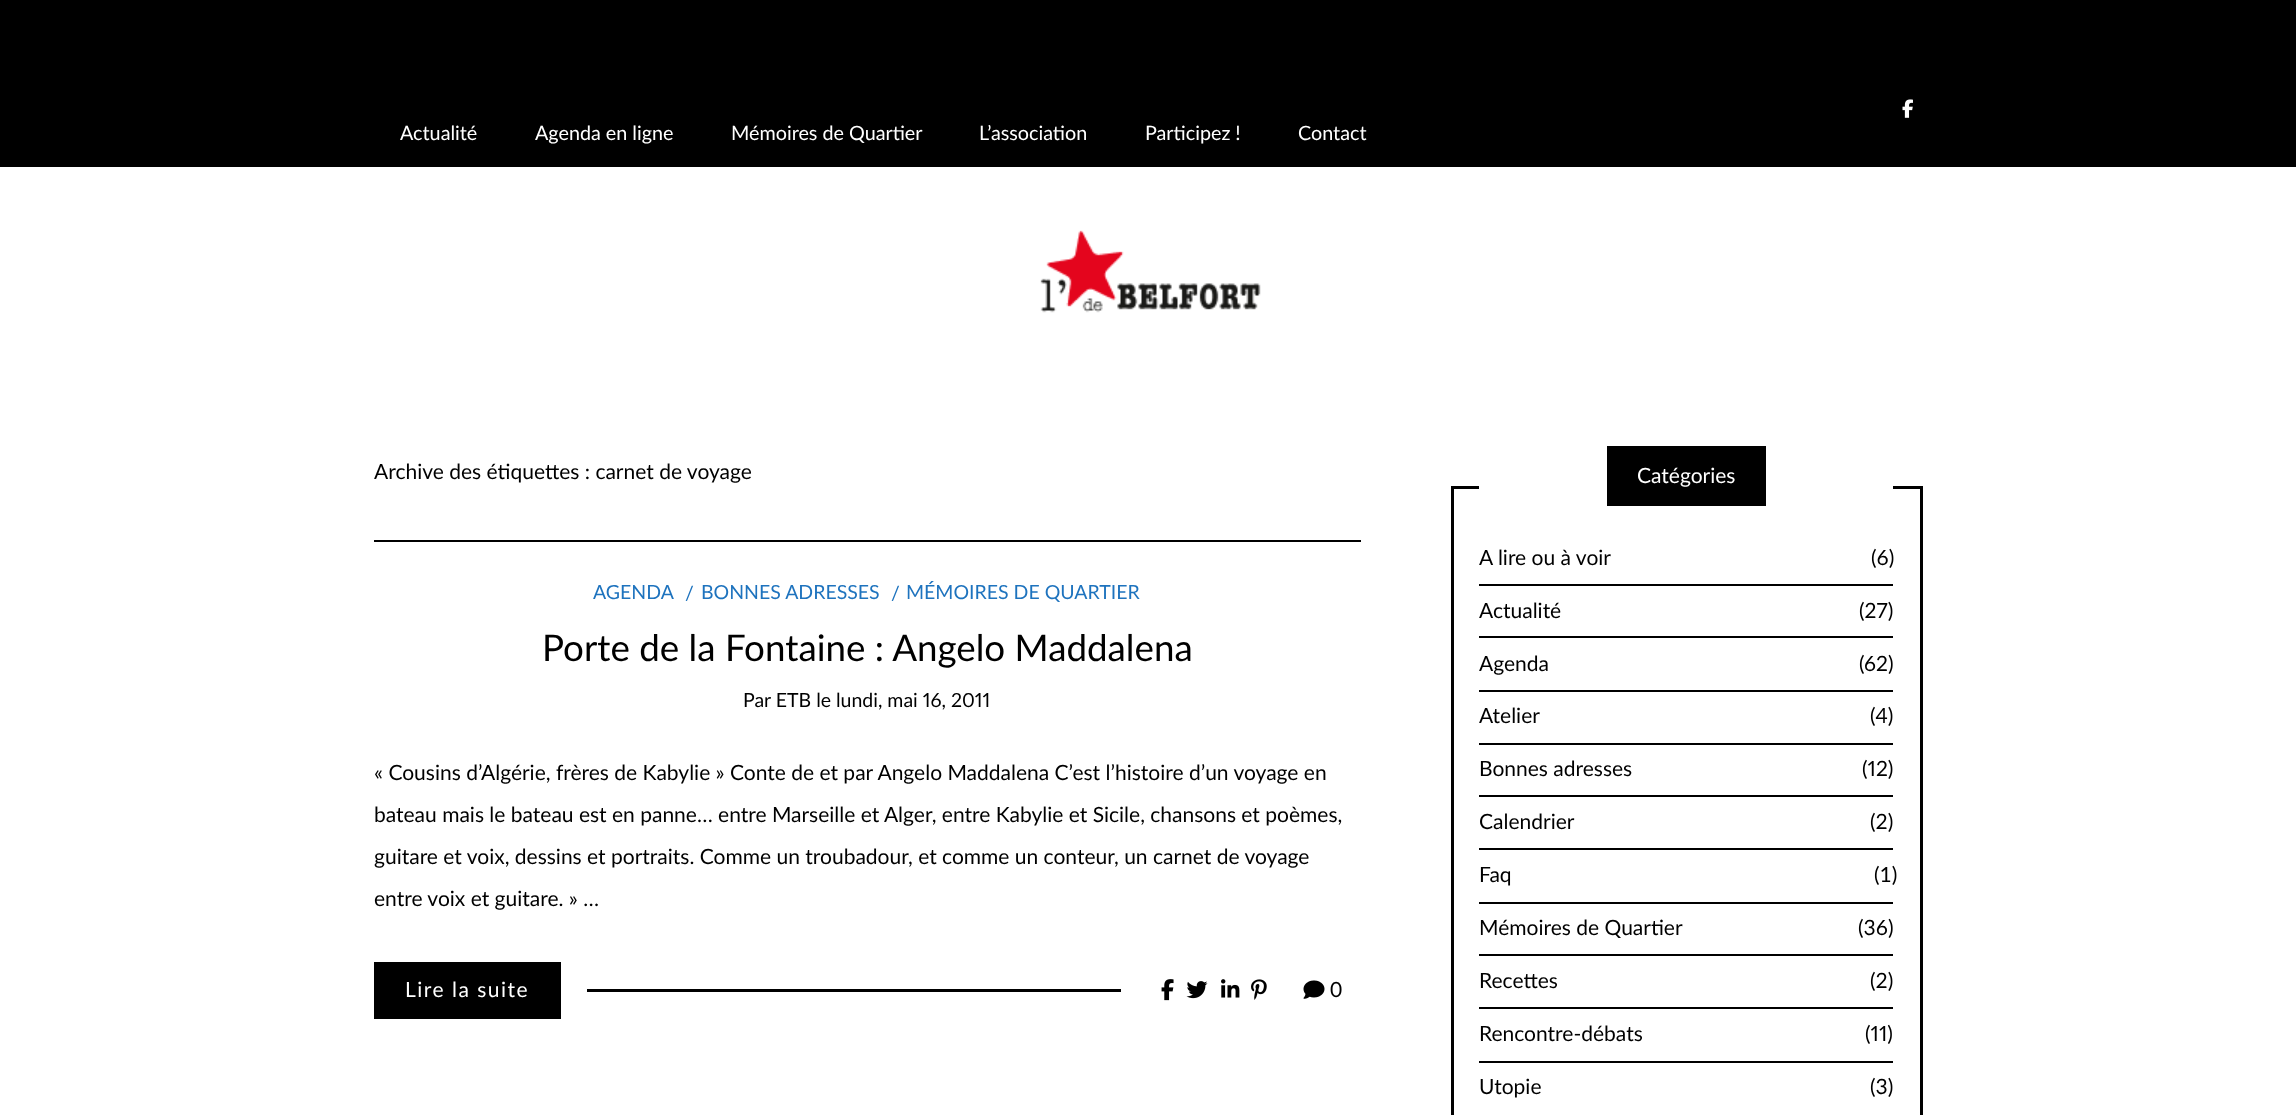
<svg xmlns="http://www.w3.org/2000/svg" width="2296" height="1115" viewBox="0 0 2296 1115">
  <rect width="100%" height="100%" fill="#000000"/>
  <rect x="0" y="167" width="2296" height="948" fill="#ffffff"/>
  <image x="1902" y="99" width="11" height="19" href="img1.png"/>
  <text x="400" y="140" font-family="Lato" font-size="19.75" fill="#ffffff">Actualité</text>
  <text x="535" y="140" font-family="Lato" font-size="19.75" fill="#ffffff">Agenda en ligne</text>
  <text x="731" y="140" font-family="Lato" font-size="19.75" fill="#ffffff">Mémoires de Quartier</text>
  <text x="979" y="140" font-family="Lato" font-size="19.75" fill="#ffffff">L’association</text>
  <text x="1145" y="140" font-family="Lato" font-size="19.75" fill="#ffffff">Participez !</text>
  <text x="1298" y="140" font-family="Lato" font-size="19.75" fill="#ffffff">Contact</text>
  <image x="1040" y="230" width="221" height="83" href="img2.png"/>
  <rect x="374" y="540" width="987" height="2" fill="#000000"/>
  <text x="374" y="479" font-family="Lato" font-size="21" fill="#000000">Archive des étiquettes : carnet de voyage</text>
  <text x="593" y="599" font-family="Lato" font-size="19.5" fill="#1e73be">AGENDA</text>
  <text x="685" y="600" font-family="Lato" font-size="19.5" fill="#1e73be">/</text>
  <text x="701" y="599" font-family="Lato" font-size="19.5" fill="#1e73be">BONNES ADRESSES</text>
  <text x="891" y="600" font-family="Lato" font-size="19.5" fill="#1e73be">/</text>
  <text x="906" y="599" font-family="Lato" font-size="19.5" fill="#1e73be">MÉMOIRES DE QUARTIER</text>
  <text x="542" y="661" font-family="Lato" font-size="36.75" fill="#000000">Porte de la Fontaine : Angelo Maddalena</text>
  <text x="743" y="707" font-family="Lato" font-size="19.5" fill="#000000">Par ETB le</text>
  <text x="836" y="707" font-family="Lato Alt" font-size="19.5" fill="#000000">lundi, mai 16, 2011</text>
  <text x="374" y="780" font-family="Lato" font-size="21" fill="#000000">« Cousins d’Algérie, frères de Kabylie » Conte de et par Angelo Maddalena C’est l’histoire d’un voyage en</text>
  <text x="374" y="822" font-family="Lato" font-size="21" fill="#000000">bateau mais le bateau est en panne… entre Marseille et Alger, entre Kabylie et Sicile, chansons et poèmes,</text>
  <text x="374" y="864" font-family="Lato" font-size="21" fill="#000000">guitare et voix, dessins et portraits. Comme un troubadour, et comme un conteur, un carnet de voyage</text>
  <text x="374" y="906" font-family="Lato" font-size="21" fill="#000000">entre voix et guitare. » …</text>
  <rect x="374" y="962" width="187" height="57" fill="#000000"/>
  <text x="405" y="997" font-family="Lato" font-size="21" letter-spacing="1.5" fill="#ffffff">Lire la suite</text>
  <rect x="587" y="989" width="534" height="3" fill="#000000"/>
  <image x="1161" y="979" width="13" height="22" href="img3.png"/>
  <image x="1186" y="981" width="22" height="18" href="img4.png"/>
  <image x="1221" y="979" width="19" height="19" href="img5.png"/>
  <image x="1251" y="979" width="16" height="21" href="img6.png"/>
  <image x="1303" y="980" width="22" height="19" href="img7.png"/>
  <text x="1330" y="997" font-family="Lato" font-size="21" fill="#000000">0</text>
  <rect x="1452.5" y="487.5" width="469" height="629" fill="none" stroke="#000000" stroke-width="3"/>
  <rect x="1479" y="486" width="414" height="3" fill="#ffffff"/>
  <rect x="1607" y="446" width="159" height="60" fill="#000000"/>
  <text x="1637" y="483" font-family="Lato" font-size="21" fill="#ffffff">Catégories</text>
  <rect x="1479" y="584" width="414" height="2" fill="#000000"/>
  <text x="1479" y="565" font-family="Lato" font-size="21" fill="#000000">A lire ou à voir</text>
  <text x="1871" y="565" font-family="Lato" font-size="21" fill="#000000">(6)</text>
  <rect x="1479" y="636" width="414" height="2" fill="#000000"/>
  <text x="1479" y="618" font-family="Lato" font-size="21" fill="#000000">Actualité</text>
  <text x="1859" y="618" font-family="Lato Alt" font-size="21" fill="#000000">(27)</text>
  <rect x="1479" y="690" width="414" height="2" fill="#000000"/>
  <text x="1479" y="671" font-family="Lato" font-size="21" fill="#000000">Agenda</text>
  <text x="1859" y="671" font-family="Lato Alt" font-size="21" fill="#000000">(62)</text>
  <rect x="1479" y="743" width="414" height="2" fill="#000000"/>
  <text x="1479" y="723" font-family="Lato" font-size="21" fill="#000000">Atelier</text>
  <text x="1870" y="723" font-family="Lato" font-size="21" fill="#000000">(4)</text>
  <rect x="1479" y="795" width="414" height="2" fill="#000000"/>
  <text x="1479" y="776" font-family="Lato" font-size="21" fill="#000000">Bonnes adresses</text>
  <text x="1862" y="776" font-family="Lato Alt" font-size="21" fill="#000000">(12)</text>
  <rect x="1479" y="848" width="414" height="2" fill="#000000"/>
  <text x="1479" y="829" font-family="Lato" font-size="21" fill="#000000">Calendrier</text>
  <text x="1870" y="829" font-family="Lato" font-size="21" fill="#000000">(2)</text>
  <rect x="1479" y="902" width="414" height="2" fill="#000000"/>
  <text x="1479" y="882" font-family="Lato" font-size="21" fill="#000000">Faq</text>
  <text x="1874" y="882" font-family="Lato" font-size="21" fill="#000000">(1)</text>
  <rect x="1479" y="954" width="414" height="2" fill="#000000"/>
  <text x="1479" y="935" font-family="Lato" font-size="21" fill="#000000">Mémoires de Quartier</text>
  <text x="1858" y="935" font-family="Lato" font-size="21" fill="#000000">(36)</text>
  <rect x="1479" y="1007" width="414" height="2" fill="#000000"/>
  <text x="1479" y="988" font-family="Lato" font-size="21" fill="#000000">Recettes</text>
  <text x="1870" y="988" font-family="Lato" font-size="21" fill="#000000">(2)</text>
  <rect x="1479" y="1061" width="414" height="2" fill="#000000"/>
  <text x="1479" y="1041" font-family="Lato" font-size="21" fill="#000000">Rencontre-débats</text>
  <text x="1865" y="1041" font-family="Lato Alt" font-size="21" fill="#000000">(11)</text>
  <text x="1479" y="1094" font-family="Lato" font-size="21" fill="#000000">Utopie</text>
  <text x="1870" y="1094" font-family="Lato" font-size="21" fill="#000000">(3)</text>
</svg>
